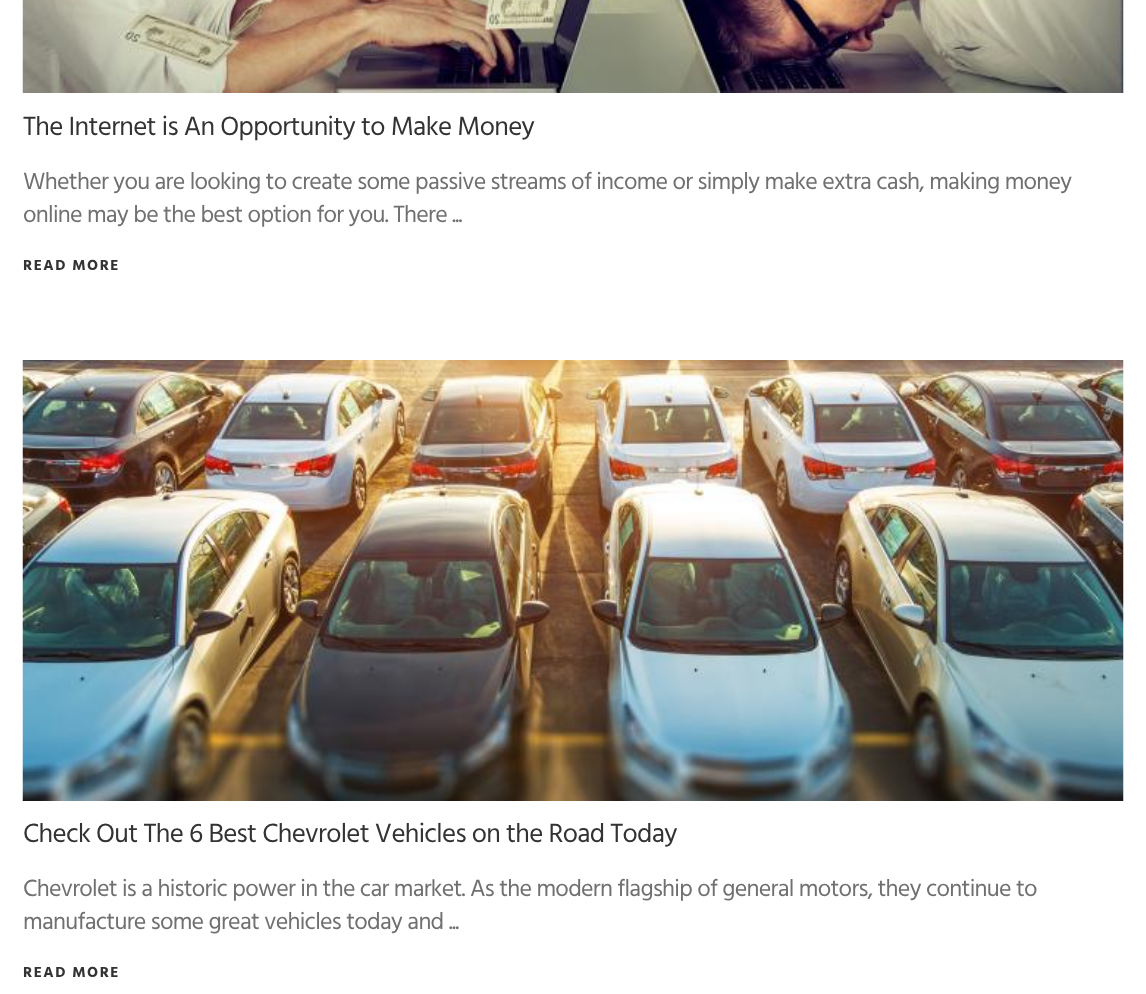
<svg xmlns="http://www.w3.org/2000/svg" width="1146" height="994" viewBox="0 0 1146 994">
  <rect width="100%" height="100%" fill="#ffffff"/>
  <image x="22" y="0" width="1102" height="93" href="img1.png"/>
  <text x="23" y="135" font-family="Hind Vadodara" font-size="27" letter-spacing="-0.68" fill="#333333">The Internet is An Opportunity to Make Money</text>
  <text x="23" y="189" font-family="Hind Vadodara" font-size="24" letter-spacing="-0.72" fill="#707070">Whether you are looking to create some passive streams of income or simply make extra cash, making money</text>
  <text x="23" y="222" font-family="Hind Vadodara" font-size="24" letter-spacing="-0.72" fill="#707070">online may be the best option for you. There ...</text>
  <text x="23" y="270" font-family="Hind Vadodara" font-size="15" font-weight="bold" letter-spacing="1.5" fill="#333333">READ MORE</text>
  <image x="22" y="360" width="1102" height="441" href="img2.png"/>
  <text x="23" y="842" font-family="Hind Vadodara" font-size="27" letter-spacing="-0.68" fill="#333333">Check Out The 6 Best Chevrolet Vehicles on the Road Today</text>
  <text x="23" y="896" font-family="Hind Vadodara" font-size="24" letter-spacing="-0.72" fill="#707070">Chevrolet is a historic power in the car market. As the modern flagship of general motors, they continue to</text>
  <text x="23" y="929" font-family="Hind Vadodara" font-size="24" letter-spacing="-0.72" fill="#707070">manufacture some great vehicles today and ...</text>
  <text x="23" y="977" font-family="Hind Vadodara" font-size="15" font-weight="bold" letter-spacing="1.5" fill="#333333">READ MORE</text>
</svg>
